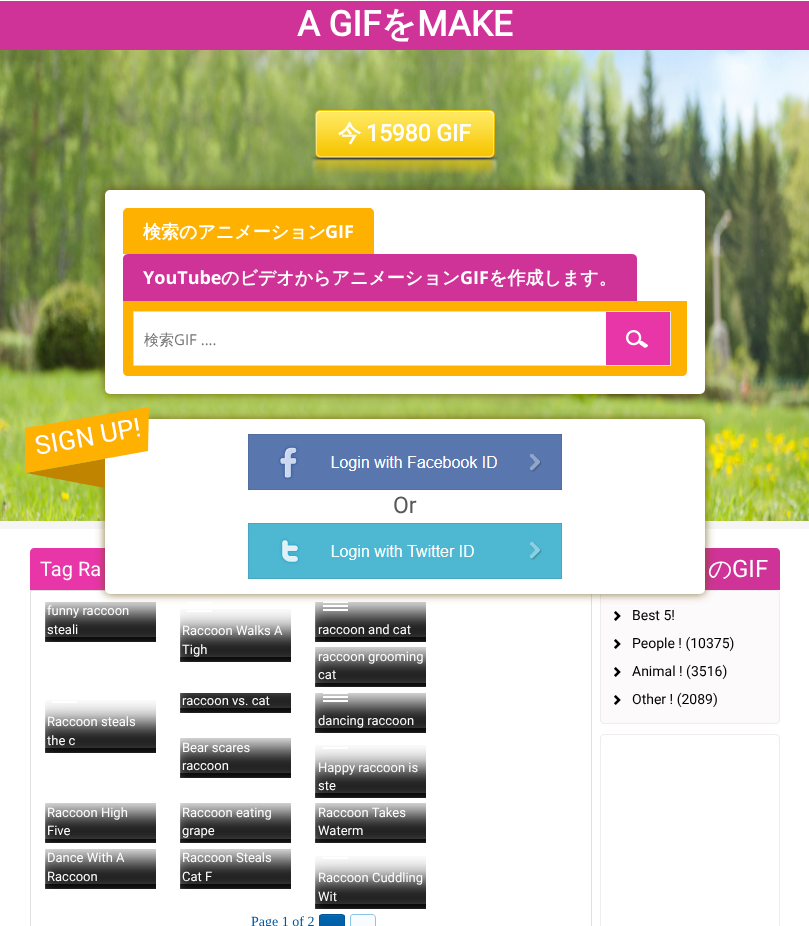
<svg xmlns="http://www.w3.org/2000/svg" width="809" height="926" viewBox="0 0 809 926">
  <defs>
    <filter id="blur1" x="-50%" y="-200%" width="200%" height="500%"><feGaussianBlur stdDeviation="5"/></filter>
    <clipPath id="clip1"><rect x="319" y="914" width="26" height="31" rx="3"/></clipPath>
    <linearGradient id="g1" gradientUnits="userSpaceOnUse" x1="320" y1="915" x2="320" y2="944"><stop offset="0.02" stop-color="#0073b6"/><stop offset="0.02" stop-color="#0066ae"/><stop offset="1" stop-color="#025299"/></linearGradient>
  </defs>
  <rect width="100%" height="100%" fill="#ffffff"/>
  <rect x="0" y="1" width="809" height="49" fill="#cf3397"/>
  <text x="297" y="36" font-family="Roboto" font-size="35" font-weight="bold" fill="#ffffff">A GIF</text>
  <text x="381" y="36" font-family="WenQuanYi Zen Hei" font-size="35" font-weight="bold" fill="#ffffff">を</text>
  <text x="417" y="36" font-family="Roboto" font-size="35" font-weight="bold" fill="#ffffff">MAKE</text>
  <image x="0" y="50" width="809" height="471" href="img1.png"/>
  <rect x="0" y="521" width="809" height="8" fill="#f5f5f5"/>
  <image x="311" y="110" width="187" height="70" href="img2.png"/>
  <text x="338" y="141" font-family="WenQuanYi Zen Hei" font-size="23" font-weight="bold" fill="#ffffff">今</text>
  <text x="366" y="141" font-family="Roboto" font-size="23" font-weight="bold" fill="#ffffff">15980 GIF</text>
  <rect x="105" y="190" width="600" height="204" rx="5" fill="#604d00" fill-opacity="0.79" filter="url(#blur1)"/>
  <rect x="105" y="190" width="600" height="204" rx="5" fill="#ffffff"/>
  <path d="M128 208H369C372 208 374 210 374 213V254H123V213C123 210 125 208 128 208Z" fill="#feb101"/>
  <text x="143" y="238" font-family="WenQuanYi Zen Hei" font-size="18" font-weight="bold" fill="#ffffff">検索のアニメーション</text>
  <text x="325" y="238" font-family="Open Sans" font-size="18" font-weight="bold" fill="#ffffff">GIF</text>
  <path d="M128 254H632C635 254 637 256 637 259V301H123V259C123 256 125 254 128 254Z" fill="#cf3397"/>
  <text x="143" y="284" font-family="Open Sans" font-size="18" font-weight="bold" fill="#ffffff">YouTube</text>
  <text x="221" y="284" font-family="WenQuanYi Zen Hei" font-size="18" font-weight="bold" fill="#ffffff">のビデオからアニメーション</text>
  <text x="460" y="284" font-family="Open Sans" font-size="18" font-weight="bold" fill="#ffffff">GIF</text>
  <text x="489" y="284" font-family="WenQuanYi Zen Hei" font-size="18" font-weight="bold" fill="#ffffff">を作成します。</text>
  <path d="M123 301H687V371C687 374 685 376 682 376H128C125 376 123 374 123 371Z" fill="#feb101"/>
  <rect x="134" y="312" width="472" height="53" fill="#ffffff"/>
  <rect x="133" y="311" width="473" height="1" fill="#dcdcdc"/>
  <rect x="133" y="365" width="473" height="1" fill="#dcdcdc"/>
  <rect x="133" y="311" width="1" height="55" fill="#dcdcdc"/>
  <text x="144" y="345" font-family="WenQuanYi Zen Hei" font-size="15" font-weight="500" fill="#757575">検索</text>
  <text x="174" y="345" font-family="Open Sans" font-size="15" fill="#757575">GIF ....</text>
  <rect x="606" y="312" width="64" height="53" fill="#e835a8"/>
  <image x="626" y="330" width="23" height="18" href="img3.png"/>
  <rect x="606" y="311" width="65" height="1" fill="#e1e1e1"/>
  <rect x="670" y="311" width="1" height="55" fill="#e1e1e1"/>
  <rect x="606" y="365" width="65" height="1" fill="#e1e1e1"/>
  <path d="M34 548H588C590 548 592 550 592 552V590H30V552C30 550 32 548 34 548Z" fill="#e835a8"/>
  <rect x="30.5" y="590.5" width="561" height="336" fill="none" stroke="#e0e0e0"/>
  <path d="M604 548H776C778 548 780 550 780 552V590H600V552C600 550 602 548 604 548Z" fill="#cf3397"/>
  <rect x="600.5" y="590.5" width="179" height="133" rx="3.5" fill="#fdfafc" stroke="#eeeced"/>
  <rect x="105" y="419" width="600" height="175" rx="5" fill="#604d00" fill-opacity="0.79" filter="url(#blur1)"/>
  <rect x="105" y="419" width="600" height="175" rx="5" fill="#ffffff"/>
  <image x="25" y="407" width="124" height="81" href="img4.png"/>
  <image x="248" y="434" width="314" height="56" href="img5.png"/>
  <text x="393" y="513" font-family="Roboto" font-size="23" fill="#585858">Or</text>
  <image x="248" y="523" width="314" height="56" href="img6.png"/>
  <text x="40" y="576" font-family="Roboto" font-size="20" fill="#ffffff">Tag Ra</text>
  <image x="45" y="637" width="111" height="5" href="img7.png"/>
  <image x="45" y="602" width="111" height="40" href="img8.png"/>
  <text x="47" y="615" font-family="Roboto" font-size="13" fill="#ffffff">funny raccoon</text>
  <text x="47" y="634" font-family="Roboto" font-size="13" fill="#ffffff">steali</text>
  <image x="180" y="657" width="111" height="5" href="img7.png"/>
  <image x="180" y="609" width="111" height="53" href="img9.png"/>
  <image x="187" y="602" width="25" height="10" href="img10.png"/>
  <text x="182" y="635" font-family="Roboto" font-size="13" fill="#ffffff">Raccoon Walks A</text>
  <text x="182" y="654" font-family="Roboto" font-size="13" fill="#ffffff">Tigh</text>
  <image x="315" y="637" width="111" height="5" href="img7.png"/>
  <image x="315" y="602" width="111" height="40" href="img11.png"/>
  <image x="323" y="602" width="25" height="9" href="img12.png"/>
  <text x="318" y="634" font-family="Roboto" font-size="13" fill="#ffffff">raccoon and cat</text>
  <image x="315" y="683" width="111" height="4" href="img13.png"/>
  <image x="315" y="647" width="111" height="40" href="img14.png"/>
  <text x="318" y="661" font-family="Roboto" font-size="13" fill="#ffffff">raccoon grooming</text>
  <text x="318" y="679" font-family="Roboto" font-size="13" fill="#ffffff">cat</text>
  <image x="180" y="708" width="111" height="5" href="img7.png"/>
  <image x="180" y="693" width="111" height="20" href="img15.png"/>
  <text x="182" y="705" font-family="Roboto" font-size="13" fill="#ffffff">raccoon vs. cat</text>
  <image x="45" y="748" width="111" height="5" href="img7.png"/>
  <image x="45" y="700" width="111" height="53" href="img9.png"/>
  <rect x="52" y="701" width="25" height="2" fill="#ffffff"/>
  <text x="47" y="726" font-family="Roboto" font-size="13" fill="#ffffff">Raccoon steals</text>
  <text x="47" y="745" font-family="Roboto" font-size="13" fill="#ffffff">the c</text>
  <image x="315" y="728" width="111" height="5" href="img7.png"/>
  <image x="315" y="693" width="111" height="40" href="img16.png"/>
  <image x="323" y="693" width="25" height="9" href="img17.png"/>
  <text x="318" y="725" font-family="Roboto" font-size="13" fill="#ffffff">dancing raccoon</text>
  <image x="180" y="773" width="111" height="5" href="img7.png"/>
  <image x="180" y="738" width="111" height="40" href="img16.png"/>
  <text x="182" y="752" font-family="Roboto" font-size="13" fill="#ffffff">Bear scares</text>
  <text x="182" y="770" font-family="Roboto" font-size="13" fill="#ffffff">raccoon</text>
  <image x="315" y="793" width="111" height="5" href="img7.png"/>
  <image x="315" y="745" width="111" height="53" href="img9.png"/>
  <image x="323" y="744" width="25" height="5" href="img18.png"/>
  <text x="318" y="772" font-family="Roboto" font-size="13" fill="#ffffff">Happy raccoon is</text>
  <text x="318" y="790" font-family="Roboto" font-size="13" fill="#ffffff">ste</text>
  <image x="45" y="839" width="111" height="4" href="img13.png"/>
  <image x="45" y="803" width="111" height="40" href="img14.png"/>
  <text x="47" y="817" font-family="Roboto" font-size="13" fill="#ffffff">Raccoon High</text>
  <text x="47" y="835" font-family="Roboto" font-size="13" fill="#ffffff">Five</text>
  <image x="180" y="839" width="111" height="4" href="img13.png"/>
  <image x="180" y="803" width="111" height="40" href="img14.png"/>
  <text x="182" y="817" font-family="Roboto" font-size="13" fill="#ffffff">Raccoon eating</text>
  <text x="182" y="835" font-family="Roboto" font-size="13" fill="#ffffff">grape</text>
  <image x="315" y="839" width="111" height="4" href="img13.png"/>
  <image x="315" y="803" width="111" height="40" href="img14.png"/>
  <text x="318" y="817" font-family="Roboto" font-size="13" fill="#ffffff">Raccoon Takes</text>
  <text x="318" y="835" font-family="Roboto" font-size="13" fill="#ffffff">Waterm</text>
  <image x="45" y="884" width="111" height="5" href="img7.png"/>
  <image x="45" y="849" width="111" height="40" href="img16.png"/>
  <text x="47" y="862" font-family="Roboto" font-size="13" fill="#ffffff">Dance With A</text>
  <text x="47" y="881" font-family="Roboto" font-size="13" fill="#ffffff">Raccoon</text>
  <image x="180" y="884" width="111" height="5" href="img7.png"/>
  <image x="180" y="849" width="111" height="40" href="img16.png"/>
  <text x="182" y="862" font-family="Roboto" font-size="13" fill="#ffffff">Raccoon Steals</text>
  <text x="182" y="881" font-family="Roboto" font-size="13" fill="#ffffff">Cat F</text>
  <image x="315" y="904" width="111" height="5" href="img7.png"/>
  <image x="315" y="856" width="111" height="53" href="img9.png"/>
  <rect x="323" y="857" width="25" height="2" fill="#ffffff"/>
  <text x="318" y="882" font-family="Roboto" font-size="13" fill="#ffffff">Raccoon Cuddling</text>
  <text x="318" y="901" font-family="Roboto" font-size="13" fill="#ffffff">Wit</text>
  <text x="251" y="926" font-family="Liberation Serif" font-size="14" fill="#01569c">Page 1 of 2</text>
  <g clip-path="url(#clip1)">
    <rect x="319" y="915" width="26" height="11" fill="url(#g1)"/>
  </g>
  <rect x="319.5" y="914.5" width="25" height="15" rx="2.5" fill="none" stroke="#01569c"/>
  <path d="M353 914.5H372C374 914.5 375.5 916 375.5 918V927C375.5 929 374 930.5 372 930.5H353C351.5 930.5 350.5 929.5 350.5 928V917C350.5 915.5 351.5 914.5 353 914.5Z" fill="#f8fcff" stroke="#8dc5e6"/>
  <text x="708" y="577" font-family="WenQuanYi Zen Hei" font-size="24" font-weight="500" fill="#ffffff">の</text>
  <text x="732" y="577" font-family="Roboto" font-size="24" fill="#ffffff">GIF</text>
  <image x="614" y="611" width="7" height="10" href="img19.png"/>
  <text x="632" y="620" font-family="Roboto" font-size="14" fill="#000000">Best 5!</text>
  <image x="614" y="639" width="7" height="10" href="img19.png"/>
  <text x="632" y="648" font-family="Roboto" font-size="14" fill="#000000">People ! (10375)</text>
  <image x="614" y="667" width="7" height="10" href="img19.png"/>
  <text x="632" y="676" font-family="Roboto" font-size="14" fill="#000000">Animal ! (3516)</text>
  <image x="614" y="695" width="7" height="10" href="img19.png"/>
  <text x="632" y="704" font-family="Roboto" font-size="14" fill="#000000">Other ! (2089)</text>
  <rect x="600.5" y="734.5" width="179" height="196" rx="3.5" fill="none" stroke="#eeeced"/>
</svg>
